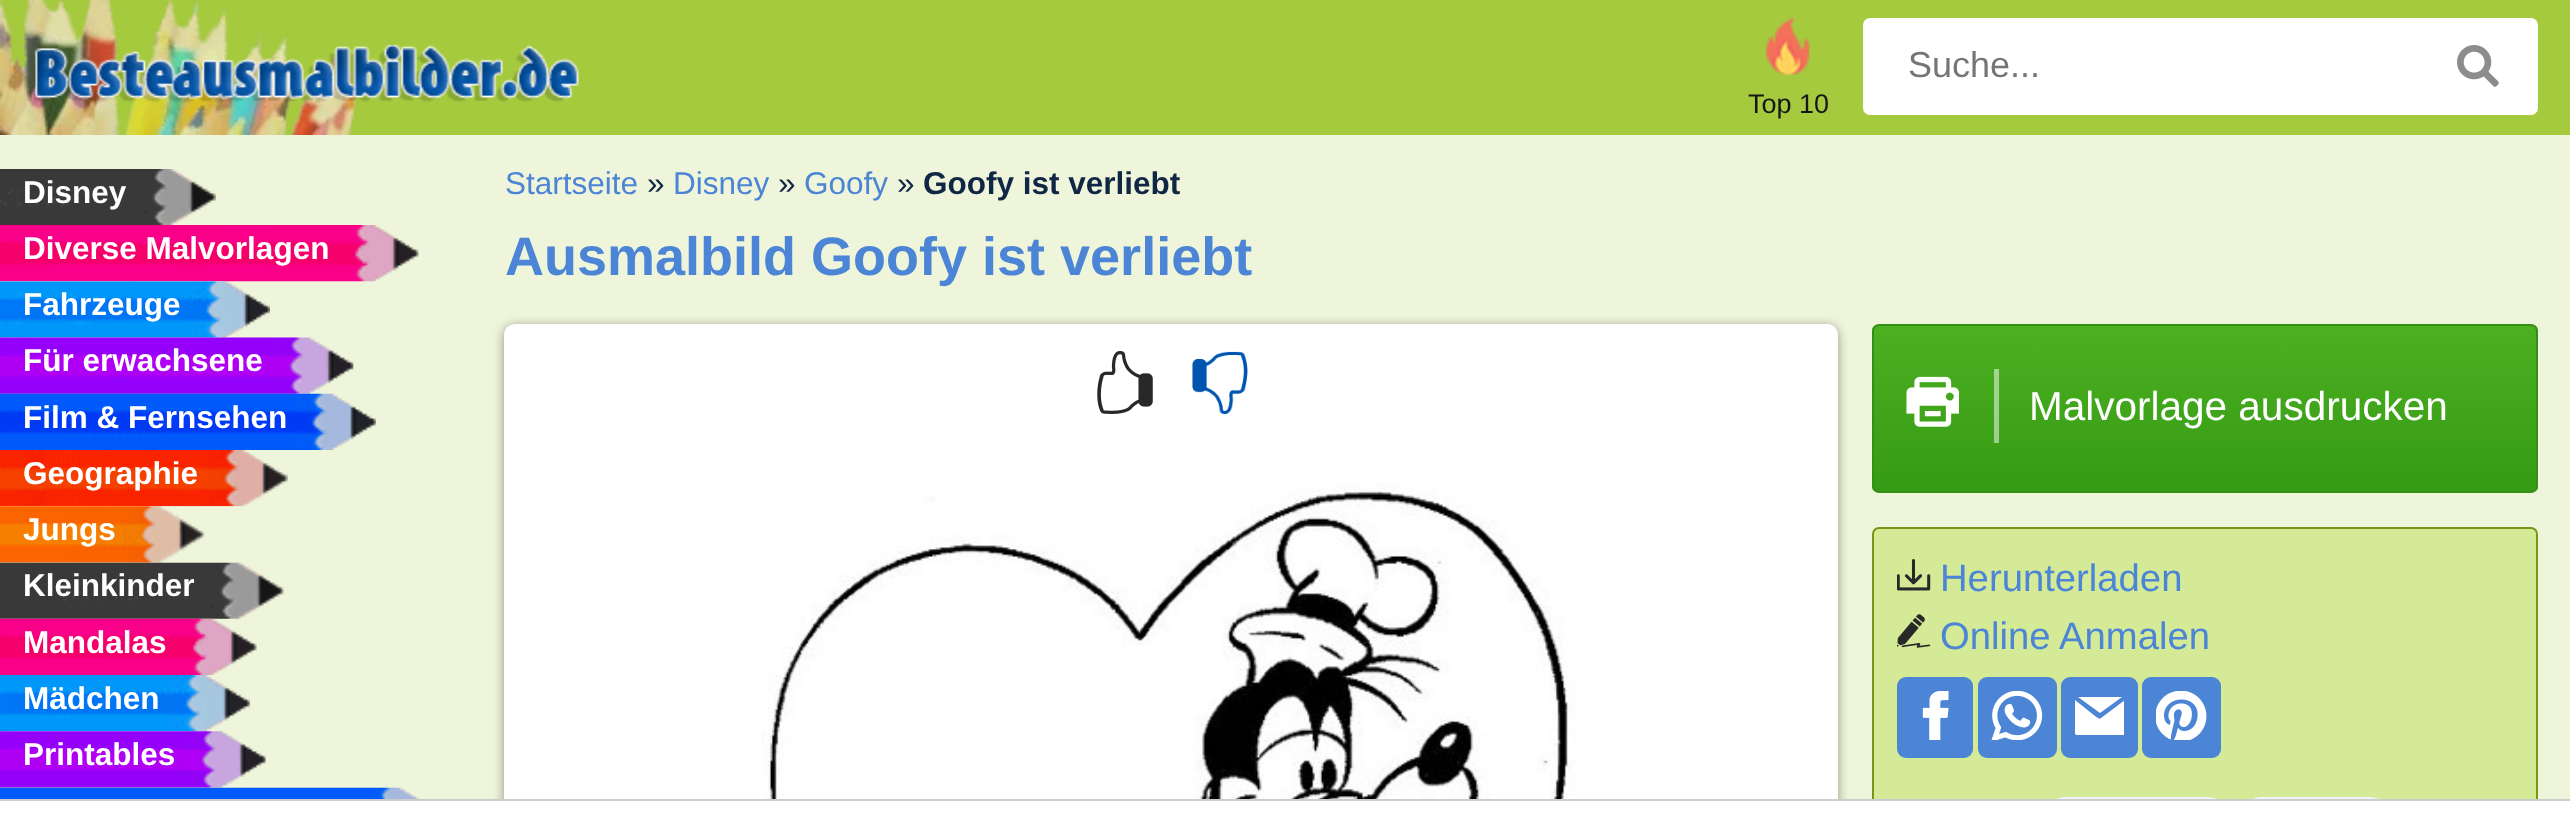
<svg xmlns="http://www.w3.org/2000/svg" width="2570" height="822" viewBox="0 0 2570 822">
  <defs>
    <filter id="blur1" x="-50%" y="-200%" width="200%" height="500%"><feGaussianBlur stdDeviation="5.5"/></filter>
    <clipPath id="clip1"><rect x="1872" y="324" width="666" height="169" rx="7"/></clipPath>
    <linearGradient id="g1" gradientUnits="userSpaceOnUse" x1="2205" y1="326" x2="2205" y2="491"><stop offset="0" stop-color="#4cb021"/><stop offset="1" stop-color="#359b14"/></linearGradient>
    <linearGradient id="g2" gradientUnits="userSpaceOnUse" x1="2205" y1="326" x2="2205" y2="491"><stop offset="0" stop-color="#a6d890"/><stop offset="1" stop-color="#9acd8a"/></linearGradient>
    <clipPath id="clip2"><rect x="2075" y="691" width="49" height="49"/></clipPath>
  </defs>
  <rect width="100%" height="100%" fill="#eef5db"/>
  <rect x="0" y="0" width="2570" height="135" fill="#a5ca3e"/>
  <image x="0" y="0" width="358" height="135" href="img1.png"/>
  <image x="34" y="45" width="545" height="58" href="img2.png"/>
  <rect x="1863" y="18" width="675" height="97" rx="7" fill="#ffffff"/>
  <text x="1908" y="77" font-family="Liberation Sans" font-size="36" fill="#757575">Suche...</text>
  <image x="2457" y="45" width="42" height="42" href="img3.png"/>
  <image x="1765" y="18" width="45" height="57" href="img4.png"/>
  <text x="1748" y="113" font-family="Liberation Sans" font-size="27" fill="#171616">Top 10</text>
  <image x="0" y="169" width="216" height="56" href="img5.png"/>
  <text x="23" y="203" font-family="Liberation Sans" font-size="31.5" font-weight="bold" fill="#ffffff">Disney</text>
  <image x="0" y="225" width="419" height="57" href="img6.png"/>
  <text x="23" y="259" font-family="Liberation Sans" font-size="31.5" font-weight="bold" fill="#ffffff">Diverse Malvorlagen</text>
  <image x="0" y="281" width="270" height="57" href="img7.png"/>
  <text x="23" y="315" font-family="Liberation Sans" font-size="31.5" font-weight="bold" fill="#ffffff">Fahrzeuge</text>
  <image x="0" y="337" width="354" height="57" href="img8.png"/>
  <text x="23" y="371" font-family="Liberation Sans" font-size="31.5" font-weight="bold" fill="#ffffff">Für erwachsene</text>
  <image x="0" y="393" width="376" height="57" href="img9.png"/>
  <text x="23" y="428" font-family="Liberation Sans" font-size="31.5" font-weight="bold" fill="#ffffff">Film &amp; Fernsehen</text>
  <image x="0" y="450" width="288" height="57" href="img10.png"/>
  <text x="23" y="484" font-family="Liberation Sans" font-size="31.5" font-weight="bold" fill="#ffffff">Geographie</text>
  <image x="0" y="506" width="205" height="57" href="img11.png"/>
  <text x="23" y="540" font-family="Liberation Sans" font-size="31.5" font-weight="bold" fill="#ffffff">Jungs</text>
  <image x="0" y="562" width="284" height="57" href="img12.png"/>
  <text x="23" y="596" font-family="Liberation Sans" font-size="31.5" font-weight="bold" fill="#ffffff">Kleinkinder</text>
  <image x="0" y="618" width="257" height="57" href="img13.png"/>
  <text x="23" y="653" font-family="Liberation Sans" font-size="31.5" font-weight="bold" fill="#ffffff">Mandalas</text>
  <image x="0" y="675" width="250" height="57" href="img14.png"/>
  <text x="23" y="709" font-family="Liberation Sans" font-size="31.5" font-weight="bold" fill="#ffffff">Mädchen</text>
  <image x="0" y="731" width="266" height="57" href="img15.png"/>
  <text x="23" y="765" font-family="Liberation Sans" font-size="31.5" font-weight="bold" fill="#ffffff">Printables</text>
  <image x="0" y="787" width="421" height="12" href="img16.png"/>
  <text x="505" y="194" font-family="Liberation Sans" font-size="31.5" fill="#4c85d5">Startseite</text>
  <text x="647" y="194" font-family="Liberation Sans" font-size="31.5" fill="#102645">»</text>
  <text x="673" y="194" font-family="Liberation Sans" font-size="31.5" fill="#4c85d5">Disney</text>
  <text x="778" y="194" font-family="Liberation Sans" font-size="31.5" fill="#102645">»</text>
  <text x="804" y="194" font-family="Liberation Sans" font-size="31.5" fill="#4c85d5">Goofy</text>
  <text x="897" y="194" font-family="Liberation Sans" font-size="31.5" fill="#102645">»</text>
  <text x="923" y="194" font-family="Liberation Sans" font-size="31.5" font-weight="bold" fill="#102645">Goofy ist verliebt</text>
  <text x="505" y="275" font-family="Liberation Sans" font-size="54" font-weight="bold" fill="#4c85d5">Ausmalbild Goofy ist verliebt</text>
  <rect x="504" y="326" width="1334" height="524" rx="11" fill="#000000" fill-opacity="0.4" filter="url(#blur1)"/>
  <rect x="504" y="324" width="1334" height="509" rx="11" fill="#ffffff"/>
  <image x="1097" y="351" width="56" height="63" href="img17.png"/>
  <image x="1192" y="351" width="56" height="63" href="img18.png"/>
  <image x="762" y="483" width="815" height="316" href="img19.png"/>
  <g clip-path="url(#clip1)">
    <rect x="1872" y="326" width="666" height="165" fill="url(#g1)"/>
  </g>
  <rect x="1994" y="369" width="5" height="74" fill="url(#g2)"/>
  <rect x="1873" y="325" width="664" height="167" rx="6" fill="none" stroke="#349014" stroke-width="2"/>
  <image x="1906" y="376" width="53" height="51" href="img20.png"/>
  <text x="2029" y="420" font-family="Liberation Sans" font-size="40.5" fill="#ffffff">Malvorlage ausdrucken</text>
  <rect x="1873" y="528" width="664" height="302" rx="6" fill="#d4ea97" stroke="#759714" stroke-width="2"/>
  <image x="1897" y="559" width="34" height="32" href="img21.png"/>
  <text x="1940" y="591" font-family="Liberation Sans" font-size="38.25" fill="#4c85d5">Herunterladen</text>
  <image x="1897" y="614" width="34" height="34" href="img22.png"/>
  <text x="1940" y="649" font-family="Liberation Sans" font-size="38.25" fill="#4c85d5">Online Anmalen</text>
  <rect x="1897" y="677" width="76" height="81" rx="9" fill="#4c85d5"/>
  <image x="1922" y="691" width="27" height="49" href="img23.png"/>
  <rect x="1978" y="677" width="79" height="81" rx="9" fill="#4c85d5"/>
  <image x="1991" y="691" width="52" height="49" href="img24.png"/>
  <rect x="2061" y="677" width="77" height="81" rx="9" fill="#4c85d5"/>
  <g clip-path="url(#clip2)">
    <path d="M2101 718C2099 720 2097 717 2095 716L2075 700L2074 733C2075 734 2076 735 2077 735H2123C2124 735 2125 734 2125 733V700Z" fill="#ffffff"/>
  </g>
  <path d="M2100 713L2122 697H2078Z" fill="#ffffff"/>
  <rect x="2142" y="677" width="79" height="81" rx="9" fill="#4c85d5"/>
  <image x="2156" y="691" width="51" height="49" href="img25.png"/>
  <rect x="2043" y="797" width="187" height="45" rx="22.5" fill="#f0f5fc"/>
  <rect x="2239" y="797" width="153" height="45" rx="22.5" fill="#f0f5fc"/>
  <rect x="0" y="801" width="2570" height="21" fill="#ffffff"/>
  <rect x="0" y="799" width="2570" height="2" fill="#cccccc"/>
</svg>
